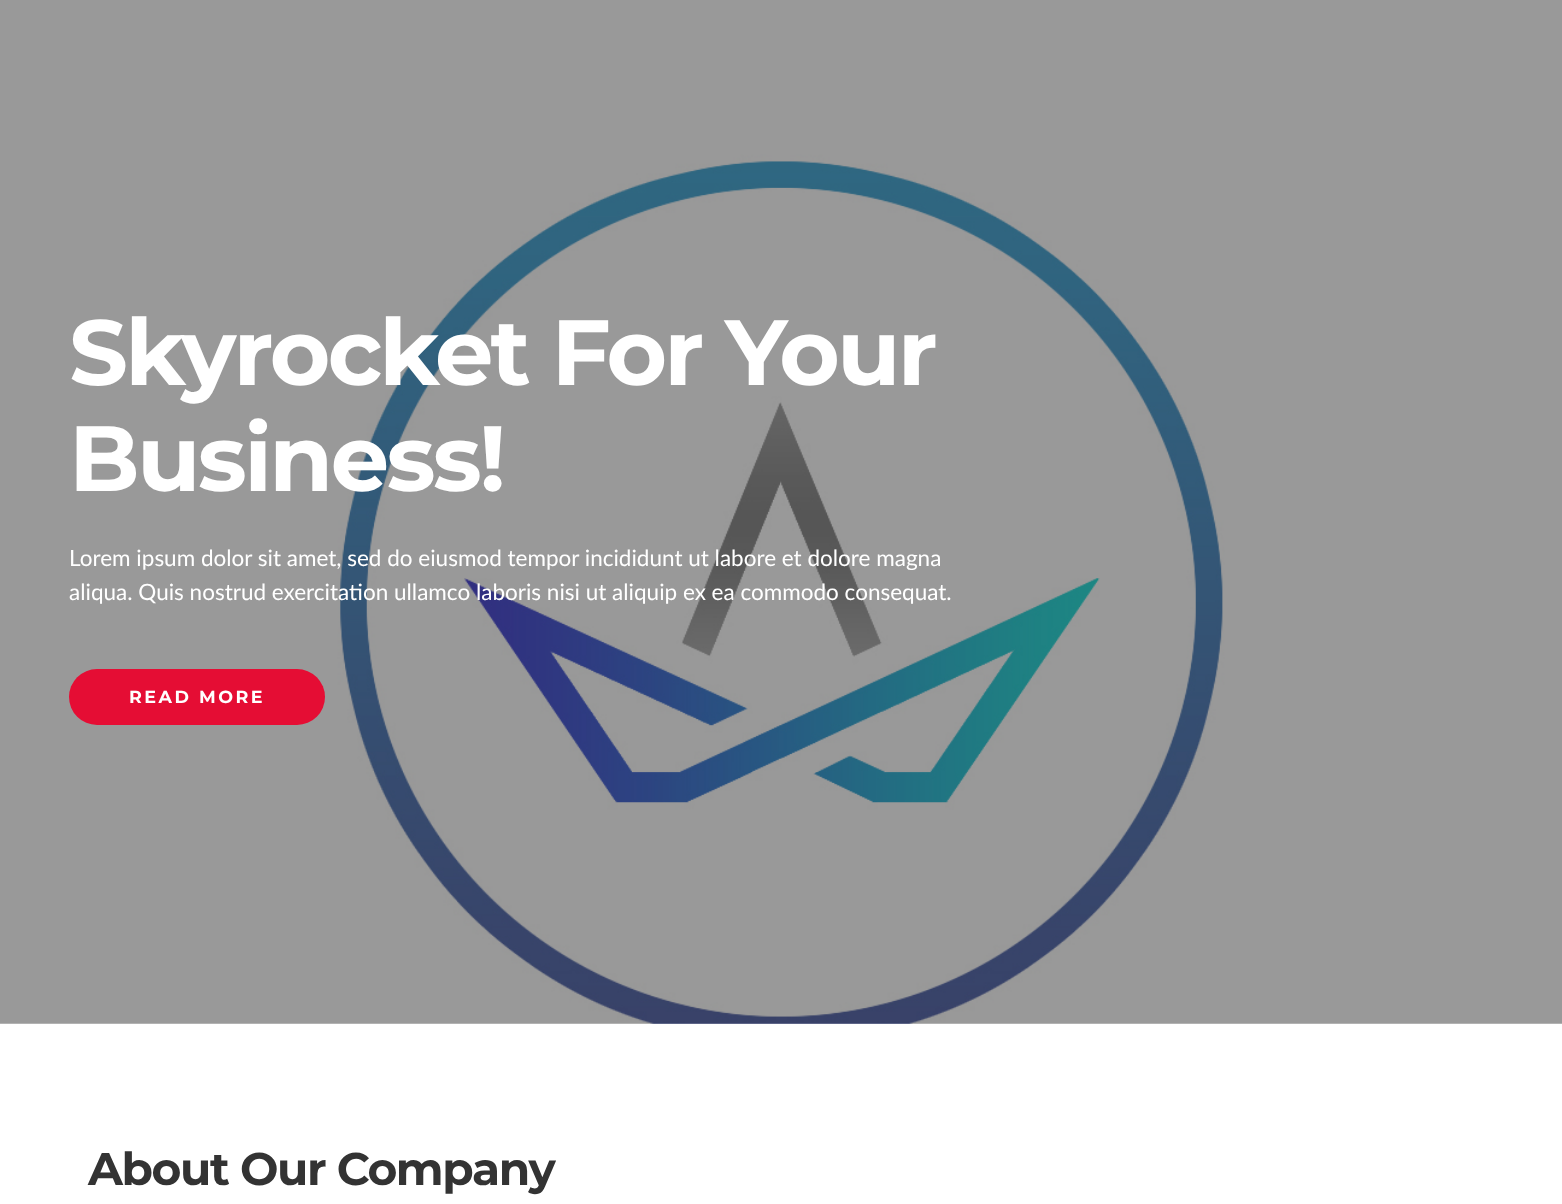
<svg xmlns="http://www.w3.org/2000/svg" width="1562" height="1204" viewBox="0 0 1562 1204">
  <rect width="100%" height="100%" fill="#ffffff"/>
  <image x="0" y="0" width="1562" height="1024" href="img1.png"/>
  <text x="69" y="385" font-family="Montserrat" font-size="92.5" font-weight="bold" letter-spacing="-2.75" fill="#ffffff">Skyrocket For Your</text>
  <text x="69" y="491" font-family="Montserrat" font-size="92.5" font-weight="bold" letter-spacing="-2.75" fill="#ffffff">Business!</text>
  <text x="69" y="566" font-family="Lato" font-size="22.5" fill="#ffffff">Lorem ipsum dolor sit amet, sed do eiusmod tempor incididunt ut labore et dolore magna</text>
  <text x="69" y="600" font-family="Lato" font-size="22.5" fill="#ffffff">aliqua. Quis nostrud exercitation ullamco laboris nisi ut aliquip ex ea commodo consequat.</text>
  <rect x="69" y="669" width="256" height="56" rx="28" fill="#e50d34"/>
  <text x="129" y="703" font-family="Montserrat" font-size="17.5" font-weight="bold" letter-spacing="2.5" fill="#ffffff">READ MORE</text>
  <text x="88" y="1185" font-family="Montserrat" font-size="45.6" font-weight="bold" letter-spacing="-1.4" fill="#333333">About Our Company</text>
</svg>
